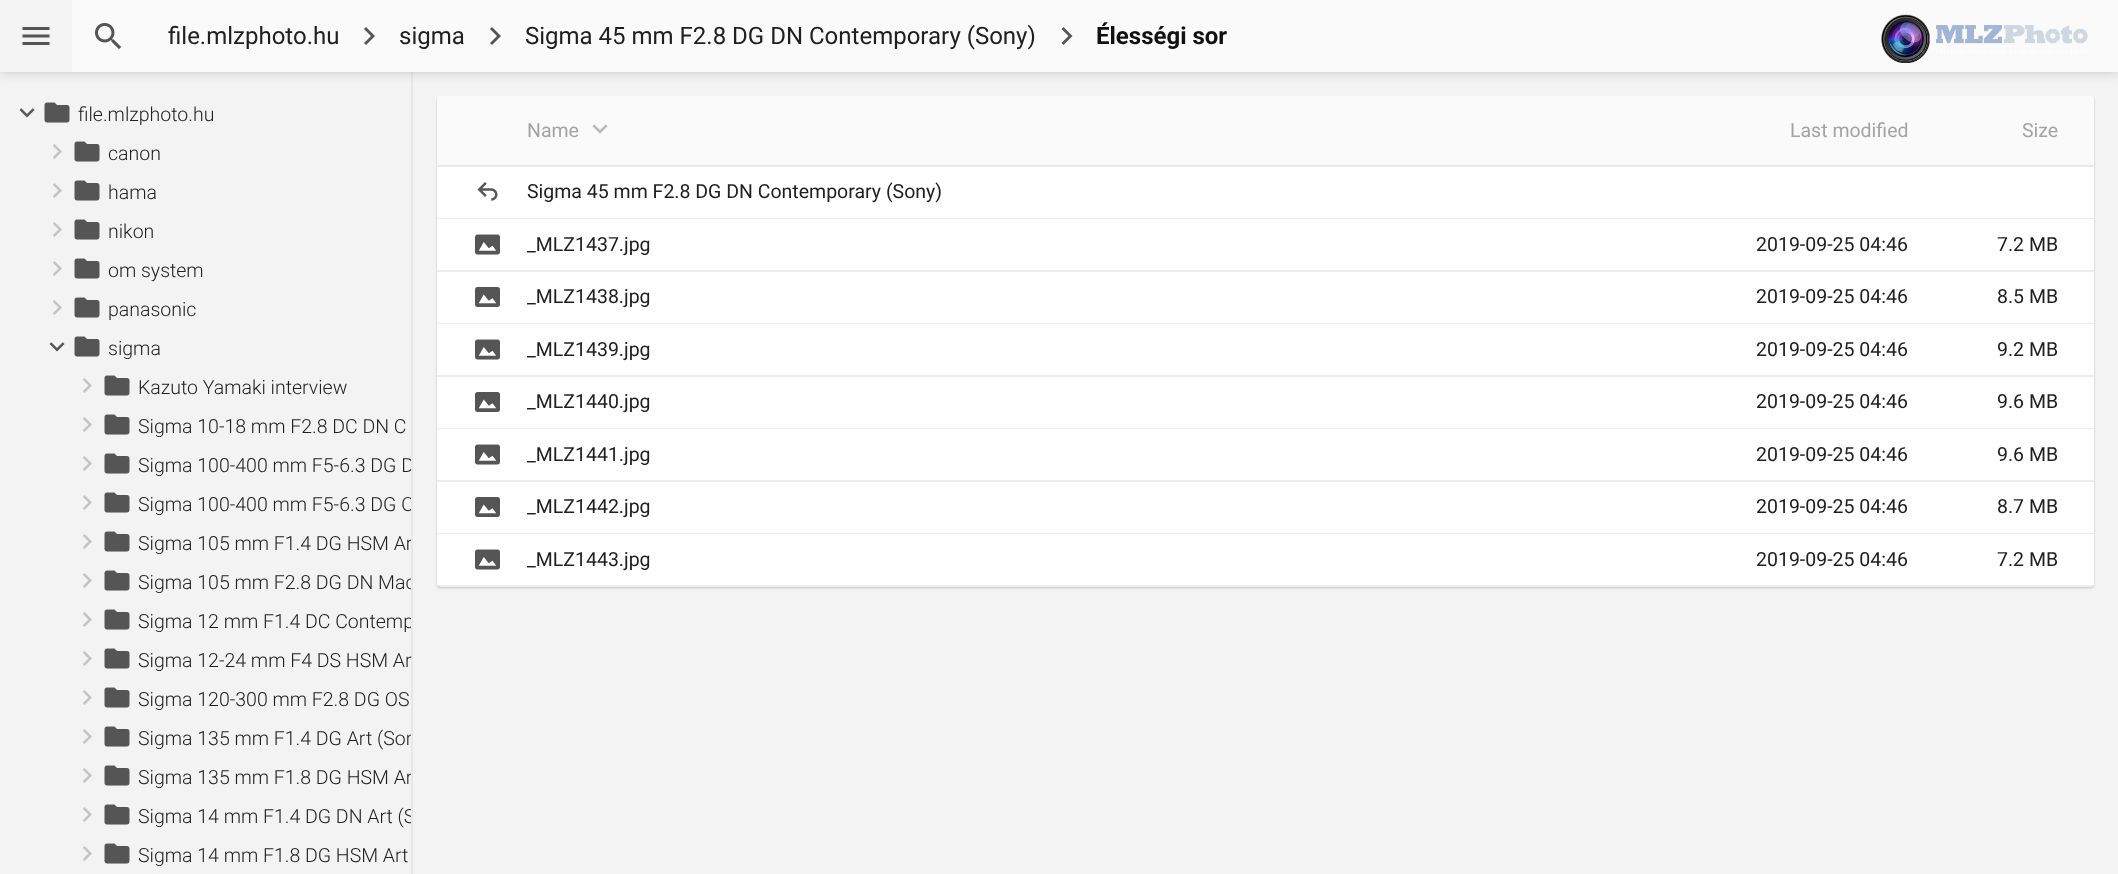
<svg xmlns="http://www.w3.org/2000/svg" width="2118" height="874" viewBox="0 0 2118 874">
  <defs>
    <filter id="blur1" x="-50%" y="-200%" width="200%" height="500%"><feGaussianBlur stdDeviation="6"/></filter>
    <clipPath id="clip1"><rect x="0" y="72" width="411" height="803"/></clipPath>
    <filter id="blur2" x="-50%" y="-200%" width="200%" height="500%"><feGaussianBlur stdDeviation="1"/></filter>
  </defs>
  <rect width="100%" height="100%" fill="#f3f3f3"/>
  <rect x="411" y="72" width="2" height="802" fill="#e7e7e7"/>
  <rect x="0" y="0" width="2118" height="72" fill="#000000" fill-opacity="0.2" filter="url(#blur1)"/>
  <rect x="72" y="0" width="2046" height="72" fill="#fafafa"/>
  <rect x="0" y="0" width="72" height="72" fill="#f3f3f3"/>
  <image x="22" y="27" width="28" height="18" href="img1.png"/>
  <image x="95" y="23" width="27" height="27" href="img2.png"/>
  <text x="168" y="44" font-family="Roboto" font-size="24" fill="#202020">file.mlzphoto.hu</text>
  <path d="M366 27L364 29L371 36L364 43L366 45L375 36Z" fill="#555555"/>
  <text x="399" y="44" font-family="Roboto" font-size="24" fill="#202020">sigma</text>
  <path d="M492 27L490 29L497 36L490 43L492 45L501 36Z" fill="#555555"/>
  <text x="525" y="44" font-family="Roboto" font-size="24" fill="#202020">Sigma 45 mm F2.8 DG DN Contemporary (Sony)</text>
  <path d="M1063.5 27L1061.5 29L1068.5 36L1061.5 43L1063.5 45L1072.5 36Z" fill="#555555"/>
  <text x="1096" y="44" font-family="Roboto" font-size="24" font-weight="bold" fill="#111111">Élességi sor</text>
  <image x="1881" y="14" width="207" height="49" href="img3.png"/>
  <image x="19" y="108" width="16" height="10" href="img4.png"/>
  <image x="44" y="102" width="26" height="21" href="img5.png"/>
  <text x="78" y="121" font-family="Roboto" font-size="19.5" font-weight="300" fill="#202020">file.mlzphoto.hu</text>
  <image x="53" y="144" width="9" height="15" href="img6.png"/>
  <image x="74" y="141" width="26" height="21" href="img5.png"/>
  <text x="108" y="160" font-family="Roboto" font-size="19.5" font-weight="300" fill="#202020">canon</text>
  <image x="53" y="183" width="9" height="15" href="img6.png"/>
  <image x="74" y="180" width="26" height="21" href="img5.png"/>
  <text x="108" y="199" font-family="Roboto" font-size="19.5" font-weight="300" fill="#202020">hama</text>
  <image x="53" y="222" width="9" height="15" href="img6.png"/>
  <image x="74" y="219" width="26" height="21" href="img5.png"/>
  <text x="108" y="238" font-family="Roboto" font-size="19.5" font-weight="300" fill="#202020">nikon</text>
  <image x="53" y="261" width="9" height="15" href="img6.png"/>
  <image x="74" y="258" width="26" height="21" href="img5.png"/>
  <text x="108" y="277" font-family="Roboto" font-size="19.5" font-weight="300" fill="#202020">om system</text>
  <image x="53" y="300" width="9" height="15" href="img6.png"/>
  <image x="74" y="297" width="26" height="21" href="img5.png"/>
  <text x="108" y="316" font-family="Roboto" font-size="19.5" font-weight="300" fill="#202020">panasonic</text>
  <image x="49" y="342" width="16" height="10" href="img4.png"/>
  <image x="74" y="336" width="26" height="21" href="img5.png"/>
  <text x="108" y="355" font-family="Roboto" font-size="19.5" font-weight="300" fill="#202020">sigma</text>
  <image x="83" y="378" width="9" height="15" href="img6.png"/>
  <image x="104" y="375" width="26" height="21" href="img5.png"/>
  <text x="138" y="394" font-family="Roboto" font-size="19.5" font-weight="300" fill="#202020">Kazuto Yamaki interview</text>
  <image x="83" y="417" width="9" height="15" href="img6.png"/>
  <image x="104" y="414" width="26" height="21" href="img5.png"/>
  <text x="138" y="433" font-family="Roboto" font-size="19.5" font-weight="300" fill="#202020">Sigma 10-18 mm F2.8 DC DN C</text>
  <image x="83" y="456" width="9" height="15" href="img6.png"/>
  <image x="104" y="453" width="26" height="21" href="img5.png"/>
  <g clip-path="url(#clip1)">
    <text x="138" y="472" font-family="Roboto" font-size="19.5" font-weight="300" fill="#202020">Sigma 100-400 mm F5-6.3 DG D</text>
  </g>
  <image x="83" y="495" width="9" height="15" href="img6.png"/>
  <image x="104" y="492" width="26" height="21" href="img5.png"/>
  <g clip-path="url(#clip1)">
    <text x="138" y="511" font-family="Roboto" font-size="19.5" font-weight="300" fill="#202020">Sigma 100-400 mm F5-6.3 DG O</text>
  </g>
  <image x="83" y="534" width="9" height="15" href="img6.png"/>
  <image x="104" y="531" width="26" height="21" href="img5.png"/>
  <g clip-path="url(#clip1)">
    <text x="138" y="550" font-family="Roboto" font-size="19.5" font-weight="300" fill="#202020">Sigma 105 mm F1.4 DG HSM Ar</text>
  </g>
  <image x="83" y="573" width="9" height="15" href="img6.png"/>
  <image x="104" y="570" width="26" height="21" href="img5.png"/>
  <g clip-path="url(#clip1)">
    <text x="138" y="589" font-family="Roboto" font-size="19.5" font-weight="300" fill="#202020">Sigma 105 mm F2.8 DG DN Mac</text>
  </g>
  <image x="83" y="612" width="9" height="15" href="img6.png"/>
  <image x="104" y="609" width="26" height="21" href="img5.png"/>
  <g clip-path="url(#clip1)">
    <text x="138" y="628" font-family="Roboto" font-size="19.5" font-weight="300" fill="#202020">Sigma 12 mm F1.4 DC Contemp</text>
  </g>
  <image x="83" y="651" width="9" height="15" href="img6.png"/>
  <image x="104" y="648" width="26" height="21" href="img5.png"/>
  <text x="138" y="667" font-family="Roboto" font-size="19.5" font-weight="300" fill="#202020">Sigma 12-24 mm F4 DS HSM Ar</text>
  <image x="83" y="690" width="9" height="15" href="img6.png"/>
  <image x="104" y="687" width="26" height="21" href="img5.png"/>
  <text x="138" y="706" font-family="Roboto" font-size="19.5" font-weight="300" fill="#202020">Sigma 120-300 mm F2.8 DG OS</text>
  <image x="83" y="729" width="9" height="15" href="img6.png"/>
  <image x="104" y="726" width="26" height="21" href="img5.png"/>
  <g clip-path="url(#clip1)">
    <text x="138" y="745" font-family="Roboto" font-size="19.5" font-weight="300" fill="#202020">Sigma 135 mm F1.4 DG Art (Son</text>
  </g>
  <image x="83" y="768" width="9" height="15" href="img6.png"/>
  <image x="104" y="765" width="26" height="21" href="img5.png"/>
  <g clip-path="url(#clip1)">
    <text x="138" y="784" font-family="Roboto" font-size="19.5" font-weight="300" fill="#202020">Sigma 135 mm F1.8 DG HSM Ar</text>
  </g>
  <image x="83" y="807" width="9" height="15" href="img6.png"/>
  <image x="104" y="804" width="26" height="21" href="img5.png"/>
  <g clip-path="url(#clip1)">
    <text x="138" y="823" font-family="Roboto" font-size="19.5" font-weight="300" fill="#202020">Sigma 14 mm F1.4 DG DN Art (S</text>
  </g>
  <image x="83" y="846" width="9" height="15" href="img6.png"/>
  <image x="104" y="843" width="26" height="21" href="img5.png"/>
  <text x="138" y="862" font-family="Roboto" font-size="19.5" font-weight="300" fill="#202020">Sigma 14 mm F1.8 DG HSM Art</text>
  <rect x="437" y="98" width="1657" height="490" rx="3" fill="#000000" fill-opacity="0.2" filter="url(#blur2)"/>
  <path d="M440 96H2091C2092.5 96 2094 97.5 2094 99V167H437V99C437 97.5 438.5 96 440 96Z" fill="#fafafa"/>
  <rect x="437" y="165" width="1657" height="2" fill="#e9e9e9"/>
  <text x="527" y="137" font-family="Roboto" font-size="19.5" fill="#a3a3a3">Name</text>
  <image x="592" y="124" width="16" height="10" href="img7.png"/>
  <text x="1790" y="137" font-family="Roboto" font-size="19.5" fill="#a3a3a3">Last modified</text>
  <text x="2022" y="137" font-family="Roboto" font-size="19.5" fill="#a3a3a3">Size</text>
  <rect x="437" y="167" width="1657" height="51" fill="#ffffff"/>
  <rect x="437" y="218" width="1657" height="1" fill="#ededed"/>
  <image x="477" y="182" width="21" height="19" href="img8.png"/>
  <text x="527" y="198" font-family="Roboto" font-size="19.5" fill="#202020">Sigma 45 mm F2.8 DG DN Contemporary (Sony)</text>
  <rect x="437" y="219" width="1657" height="51" fill="#ffffff"/>
  <rect x="437" y="270" width="1657" height="2" fill="#ededed"/>
  <image x="475" y="234" width="25" height="21" href="img9.png"/>
  <text x="527" y="251" font-family="Roboto" font-size="19.5" fill="#202020">_MLZ1437.jpg</text>
  <text x="1756" y="251" font-family="Roboto" font-size="19.5" fill="#202020">2019-09-25 04:46</text>
  <text x="1997" y="251" font-family="Roboto" font-size="19.5" fill="#202020">7.2 MB</text>
  <rect x="437" y="272" width="1657" height="51" fill="#ffffff"/>
  <rect x="437" y="323" width="1657" height="1" fill="#ededed"/>
  <image x="475" y="287" width="25" height="20" href="img10.png"/>
  <text x="527" y="303" font-family="Roboto" font-size="19.5" fill="#202020">_MLZ1438.jpg</text>
  <text x="1756" y="303" font-family="Roboto" font-size="19.5" fill="#202020">2019-09-25 04:46</text>
  <text x="1997" y="303" font-family="Roboto" font-size="19.5" fill="#202020">8.5 MB</text>
  <rect x="437" y="324" width="1657" height="51" fill="#ffffff"/>
  <rect x="437" y="375" width="1657" height="2" fill="#ededed"/>
  <image x="475" y="339" width="25" height="21" href="img9.png"/>
  <text x="527" y="356" font-family="Roboto" font-size="19.5" fill="#202020">_MLZ1439.jpg</text>
  <text x="1756" y="356" font-family="Roboto" font-size="19.5" fill="#202020">2019-09-25 04:46</text>
  <text x="1997" y="356" font-family="Roboto" font-size="19.5" fill="#202020">9.2 MB</text>
  <rect x="437" y="377" width="1657" height="51" fill="#ffffff"/>
  <rect x="437" y="428" width="1657" height="1" fill="#ededed"/>
  <image x="475" y="392" width="25" height="20" href="img10.png"/>
  <text x="527" y="408" font-family="Roboto" font-size="19.5" fill="#202020">_MLZ1440.jpg</text>
  <text x="1756" y="408" font-family="Roboto" font-size="19.5" fill="#202020">2019-09-25 04:46</text>
  <text x="1997" y="408" font-family="Roboto" font-size="19.5" fill="#202020">9.6 MB</text>
  <rect x="437" y="429" width="1657" height="51" fill="#ffffff"/>
  <rect x="437" y="480" width="1657" height="2" fill="#ededed"/>
  <image x="475" y="444" width="25" height="21" href="img9.png"/>
  <text x="527" y="461" font-family="Roboto" font-size="19.5" fill="#202020">_MLZ1441.jpg</text>
  <text x="1756" y="461" font-family="Roboto" font-size="19.5" fill="#202020">2019-09-25 04:46</text>
  <text x="1997" y="461" font-family="Roboto" font-size="19.5" fill="#202020">9.6 MB</text>
  <rect x="437" y="482" width="1657" height="51" fill="#ffffff"/>
  <rect x="437" y="533" width="1657" height="1" fill="#ededed"/>
  <image x="475" y="497" width="25" height="20" href="img10.png"/>
  <text x="527" y="513" font-family="Roboto" font-size="19.5" fill="#202020">_MLZ1442.jpg</text>
  <text x="1756" y="513" font-family="Roboto" font-size="19.5" fill="#202020">2019-09-25 04:46</text>
  <text x="1997" y="513" font-family="Roboto" font-size="19.5" fill="#202020">8.7 MB</text>
  <path d="M437 534H2094V584C2094 585.5 2092.5 587 2091 587H440C438.5 587 437 585.5 437 584Z" fill="#ffffff"/>
  <rect x="438" y="585" width="1655" height="2" fill="#000000" fill-opacity="0.07"/>
  <image x="475" y="549" width="25" height="21" href="img9.png"/>
  <text x="527" y="566" font-family="Roboto" font-size="19.5" fill="#202020">_MLZ1443.jpg</text>
  <text x="1756" y="566" font-family="Roboto" font-size="19.5" fill="#202020">2019-09-25 04:46</text>
  <text x="1997" y="566" font-family="Roboto" font-size="19.5" fill="#202020">7.2 MB</text>
</svg>
